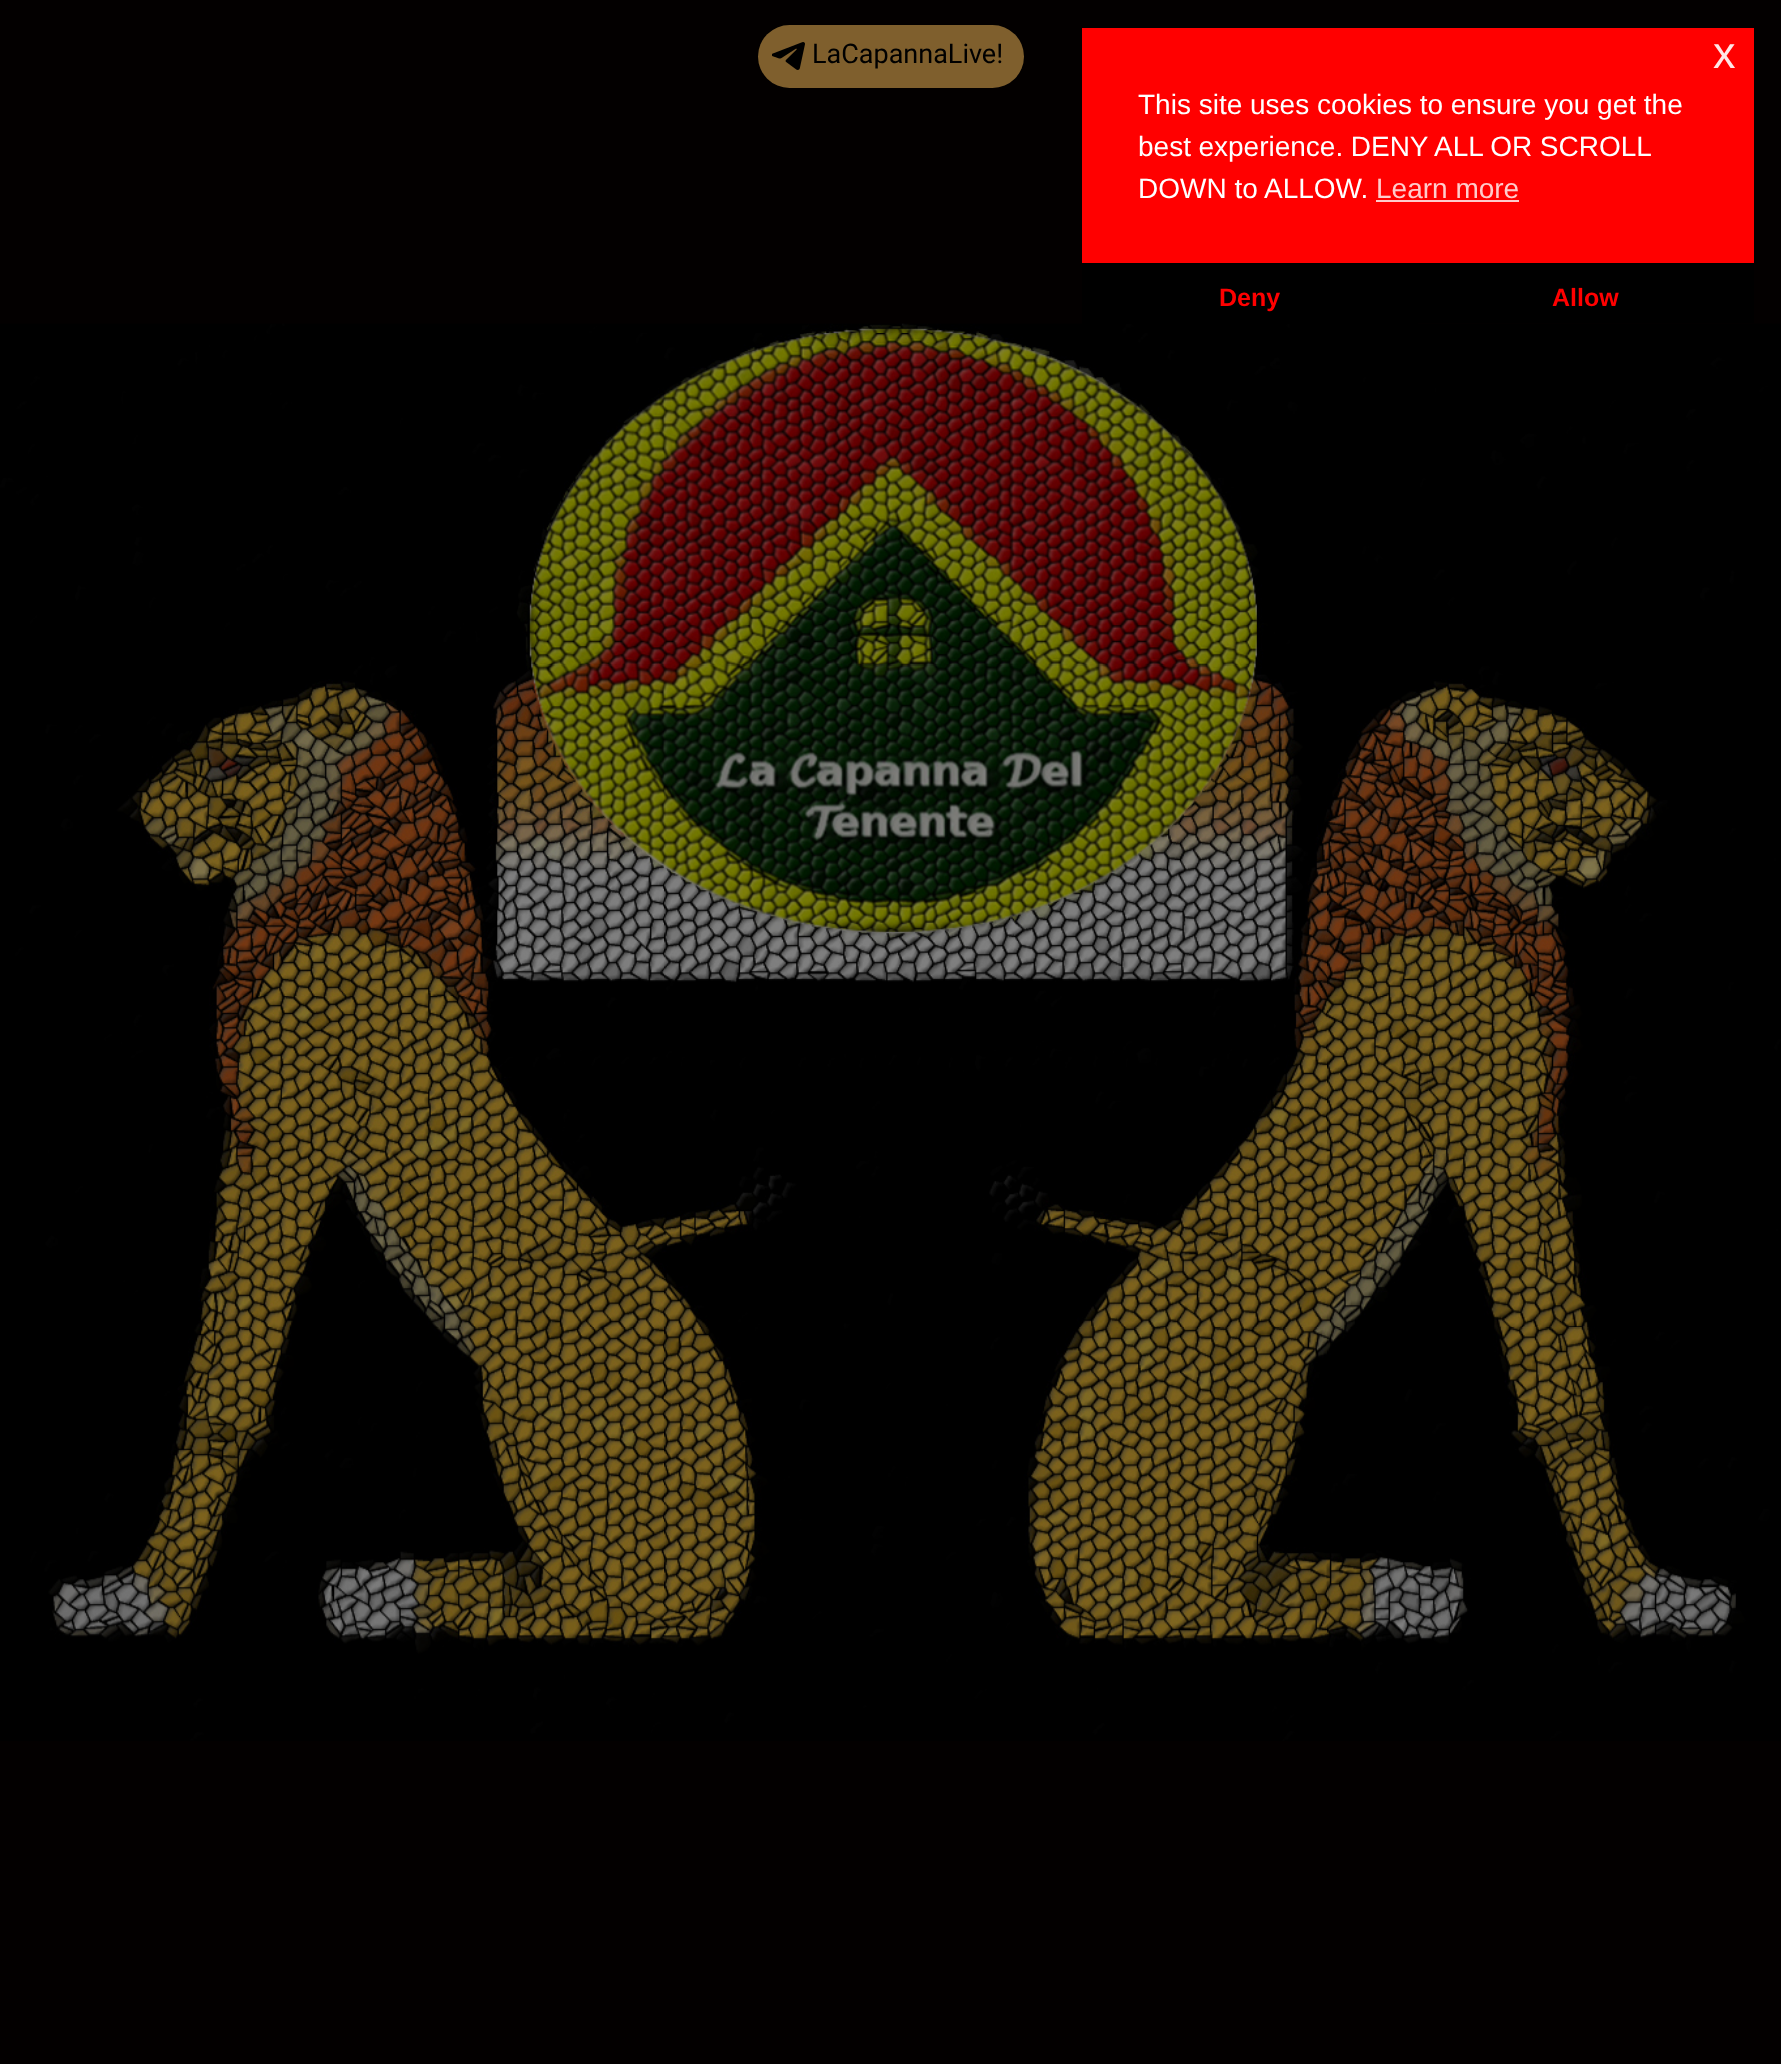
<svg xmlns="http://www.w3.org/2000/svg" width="1781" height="2064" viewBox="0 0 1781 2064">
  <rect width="100%" height="100%" fill="#030000"/>
  <image x="0" y="323" width="1781" height="1418" href="img1.png"/>
  <rect x="758" y="25" width="266" height="63" rx="31.5" fill="#7f5f2d"/>
  <image x="772" y="42" width="33" height="28" href="img2.png"/>
  <text x="812" y="63" font-family="Roboto" font-size="27" fill="#000000">LaCapannaLive!</text>
  <rect x="1082" y="28" width="672" height="235" fill="#ff0000"/>
  <text x="1713" y="68" font-family="Liberation Sans" font-size="45" fill="#ffe6e6">x</text>
  <text x="1138" y="114" font-family="Liberation Sans" font-size="28" fill="#ffffff">This site uses cookies to ensure you get the</text>
  <text x="1138" y="156" word-spacing="-0.25" font-family="Liberation Sans" font-size="28" fill="#ffffff">best experience. DENY ALL OR SCROLL</text>
  <text x="1138" y="198" font-family="Liberation Sans" font-size="28" fill="#ffffff">DOWN to ALLOW.</text>
  <text x="1376" y="198" font-family="Liberation Sans" font-size="28" fill="#ffcccc">Learn more</text>
  <rect x="1376" y="200" width="143" height="2" fill="#ffcccc"/>
  <rect x="1082" y="263" width="336" height="61" fill="#000000"/>
  <text x="1219" y="306" font-family="Liberation Sans" font-size="25" font-weight="bold" fill="#ff0000">Deny</text>
  <rect x="1418" y="263" width="336" height="60" fill="#000000"/>
  <text x="1552" y="306" font-family="Liberation Sans" font-size="25" font-weight="bold" fill="#ff0000">Allow</text>
</svg>
